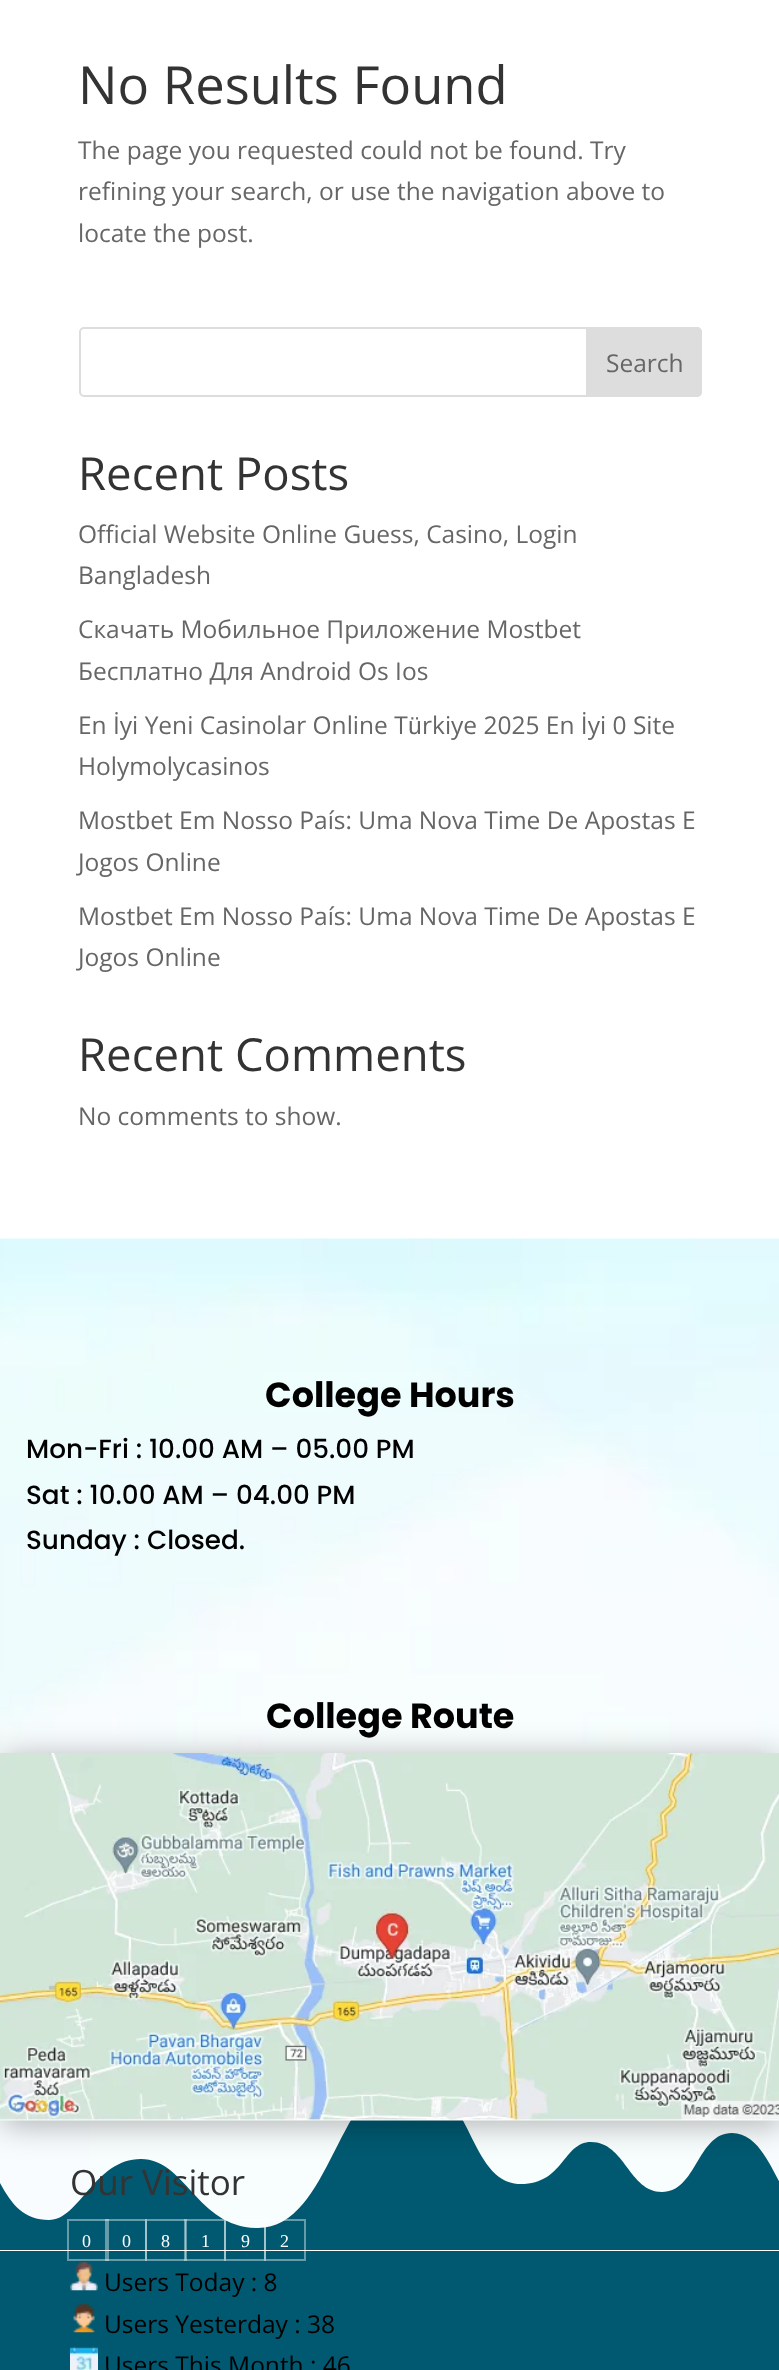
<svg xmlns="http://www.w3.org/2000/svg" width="779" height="2370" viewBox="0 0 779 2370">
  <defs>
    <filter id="blur1" x="-50%" y="-200%" width="200%" height="500%"><feGaussianBlur stdDeviation="16"/></filter>
  </defs>
  <rect width="100%" height="100%" fill="#ffffff"/>
  <text x="78" y="104" font-family="Open Sans" font-size="52.5" fill="#333333">No Results Found</text>
  <text x="78" y="159" font-family="Open Sans" font-size="24.5" fill="#666666">The page you requested could not be found. Try</text>
  <text x="78" y="200" font-family="Open Sans" font-size="24.5" fill="#666666">refining your search, or use the navigation above to</text>
  <text x="78" y="242" font-family="Open Sans" font-size="24.5" fill="#666666">locate the post.</text>
  <rect x="80" y="328" width="621" height="68" rx="4" fill="none" stroke="#dddddd" stroke-width="2"/>
  <path d="M587 328H697C699 328 701 330 701 332V392C701 394 699 396 697 396H587Z" fill="#dddddd" stroke="#dddddd" stroke-width="2"/>
  <text x="606" y="372" font-family="Open Sans" font-size="24.5" fill="#666666">Search</text>
  <text x="78" y="490" font-family="Open Sans" font-size="45.5" fill="#333333">Recent Posts</text>
  <text x="78" y="543" font-family="Open Sans" font-size="24.5" fill="#666666">Official Website Online Guess, Casino, Login</text>
  <text x="78" y="584" font-family="Open Sans" font-size="24.5" fill="#666666">Bangladesh</text>
  <text x="78" y="638" font-family="Open Sans" font-size="24.5" fill="#666666">Скачать Мобильное Приложение Mostbet</text>
  <text x="78" y="680" font-family="Open Sans" font-size="24.5" fill="#666666">Бесплатно Для Android Os Ios</text>
  <text x="78" y="734" font-family="Open Sans" font-size="24.5" fill="#666666">En İyi Yeni Casinolar Online T</text>
  <text x="408" y="734" font-family="Liberation Sans" font-size="24.5" fill="#666666">ü</text>
  <text x="422" y="734" font-family="Open Sans" font-size="24.5" fill="#666666">rkiye 2025 En İyi 0 Site</text>
  <text x="78" y="775" font-family="Open Sans" font-size="24.5" fill="#666666">Holymolycasinos</text>
  <text x="78" y="829" font-family="Open Sans" font-size="24.5" fill="#666666">Mostbet Em Nosso País: Uma Nova Time De Apostas E</text>
  <text x="78" y="871" font-family="Open Sans" font-size="24.5" fill="#666666">Jogos Online</text>
  <text x="78" y="925" font-family="Open Sans" font-size="24.5" fill="#666666">Mostbet Em Nosso País: Uma Nova Time De Apostas E</text>
  <text x="78" y="966" font-family="Open Sans" font-size="24.5" fill="#666666">Jogos Online</text>
  <text x="78" y="1071" font-family="Open Sans" font-size="45.5" fill="#333333">Recent Comments</text>
  <text x="78" y="1125" font-family="Open Sans" font-size="24.5" fill="#666666">No comments to show.</text>
  <image x="0" y="1238" width="779" height="990" href="img1.png"/>
  <text x="265" y="1407" font-family="Poppins" font-size="35" font-weight="bold" fill="#000000">College Hours</text>
  <text x="26" y="1458" font-family="Poppins" font-size="26.25" font-weight="500" fill="#000000">Mon-Fri : 10.00 AM – 05.00 PM</text>
  <text x="26" y="1504" font-family="Poppins" font-size="26.25" font-weight="500" fill="#000000">Sat : 10.00 AM – 04.00 PM</text>
  <text x="26" y="1549" font-family="Poppins" font-size="26.25" font-weight="500" fill="#000000">Sunday : Closed.</text>
  <text x="266" y="1728" font-family="Poppins" font-size="35" font-weight="bold" fill="#000000">College Route</text>
  <path d="M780 2183C768 2161 756 2133 732 2133C697 2133 697 2192 662 2192C629 2192 625 2142 591 2142C563 2142 564 2184 521 2184C466 2184 473 2076 406 2076C338 2076 332 2228 258 2228C197 2228 186 2159 141 2159C94 2159 80 2220 49 2220C24 2220 12 2205 0 2183V2250H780Z" fill="#005970"/>
  <rect x="2" y="1757" width="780" height="368" fill="#000000" fill-opacity="0.3" filter="url(#blur1)"/>
  <image x="0" y="1753" width="779" height="368" href="img2.png"/>
  <text x="70" y="2195" font-family="Open Sans" font-size="35" fill="#333333">Our Visitor</text>
  <rect x="0" y="2251" width="779" height="119" fill="#005970"/>
  <rect x="68" y="2220" width="40" height="40" fill="none" stroke="#ffffff" stroke-opacity="0.4" stroke-width="2"/>
  <text x="82" y="2247" font-family="Liberation Serif" font-size="18" fill="#ffffff">0</text>
  <rect x="106" y="2220" width="40" height="40" fill="none" stroke="#ffffff" stroke-opacity="0.4" stroke-width="2"/>
  <text x="122" y="2247" font-family="Liberation Serif" font-size="18" fill="#ffffff">0</text>
  <rect x="146" y="2220" width="40" height="40" fill="none" stroke="#ffffff" stroke-opacity="0.4" stroke-width="2"/>
  <text x="161" y="2247" font-family="Liberation Serif" font-size="18" fill="#ffffff">8</text>
  <rect x="185" y="2220" width="40" height="40" fill="none" stroke="#ffffff" stroke-opacity="0.4" stroke-width="2"/>
  <text x="201" y="2247" font-family="Liberation Serif" font-size="18" fill="#ffffff">1</text>
  <rect x="225" y="2220" width="40" height="40" fill="none" stroke="#ffffff" stroke-opacity="0.4" stroke-width="2"/>
  <text x="241" y="2247" font-family="Liberation Serif" font-size="18" fill="#ffffff">9</text>
  <rect x="265" y="2220" width="40" height="40" fill="none" stroke="#ffffff" stroke-opacity="0.4" stroke-width="2"/>
  <text x="280" y="2247" font-family="Liberation Serif" font-size="18" fill="#ffffff">2</text>
  <image x="70" y="2262" width="28" height="29" href="img3.png"/>
  <text x="104" y="2291" font-family="Open Sans" font-size="24.5" fill="#000000">Users Today : 8</text>
  <image x="73" y="2304" width="22" height="29" href="img4.png"/>
  <text x="104" y="2333" font-family="Open Sans" font-size="24.5" fill="#000000">Users Yesterday : 38</text>
  <image x="70" y="2346" width="28" height="24" href="img5.png"/>
  <text x="104" y="2374" font-family="Open Sans" font-size="24.5" fill="#000000">Users This Month : 46</text>
</svg>
